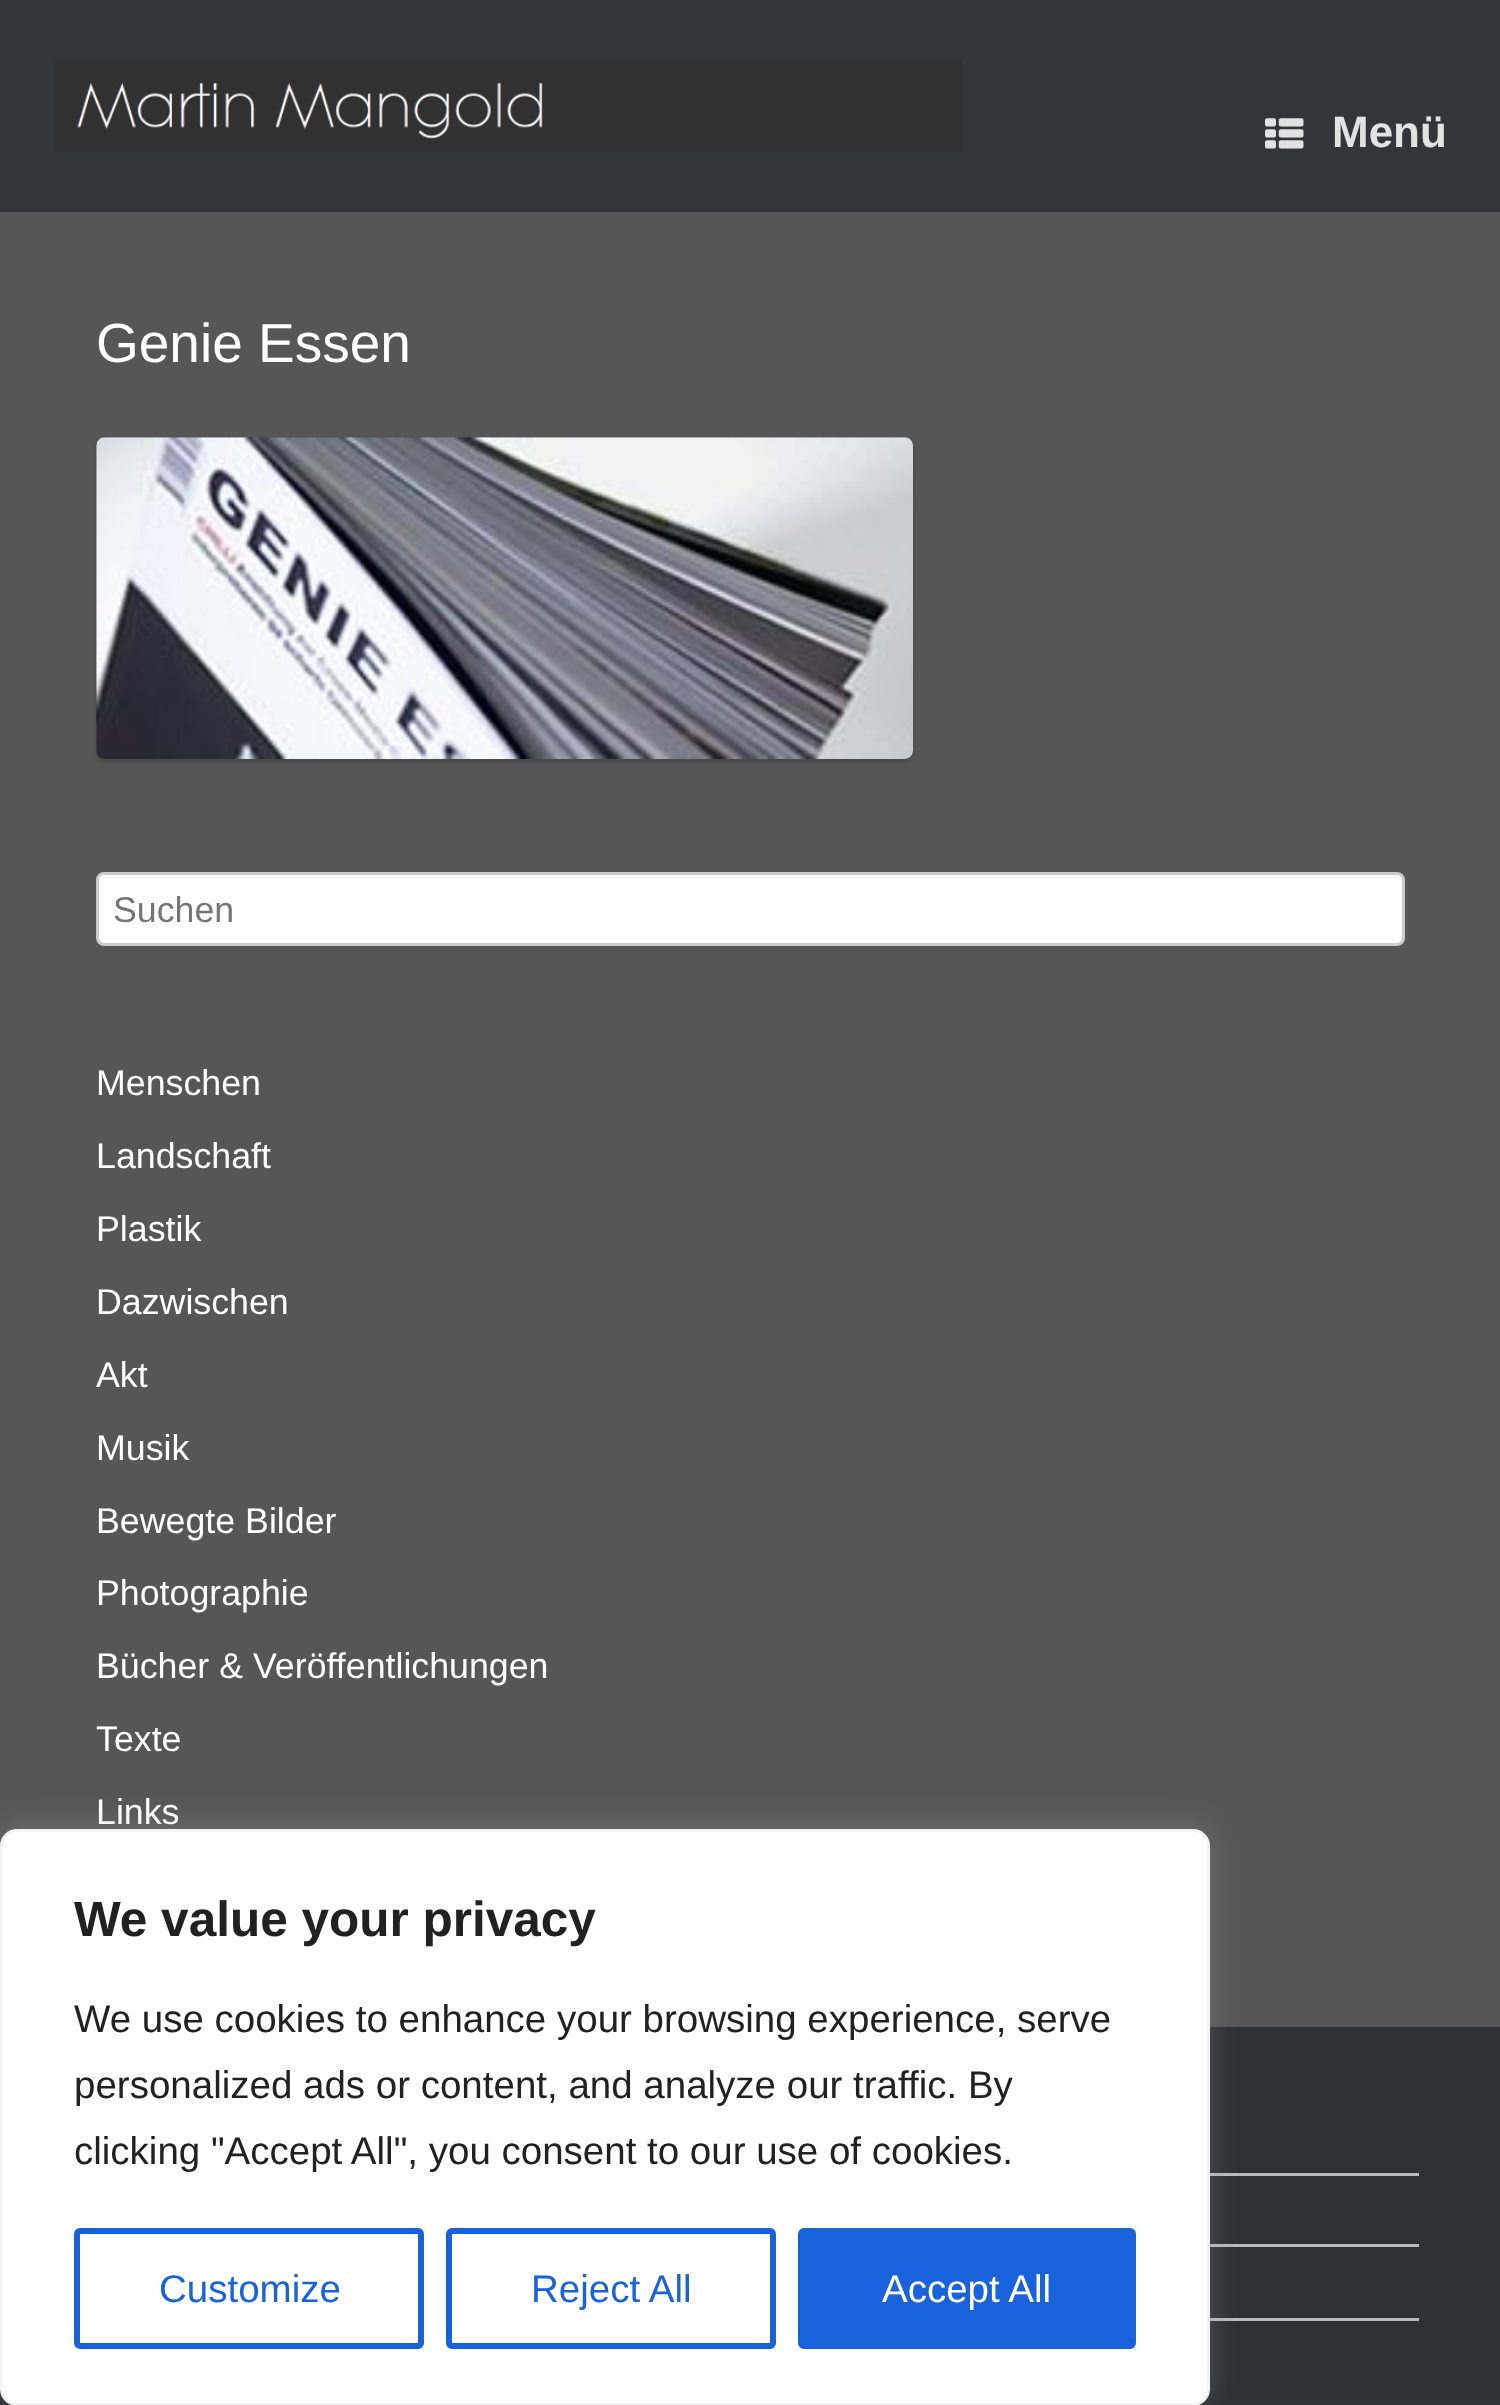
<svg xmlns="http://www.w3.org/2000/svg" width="1500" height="2405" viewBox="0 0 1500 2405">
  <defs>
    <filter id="blur1" x="-50%" y="-200%" width="200%" height="500%"><feGaussianBlur stdDeviation="3"/></filter>
    <filter id="blur2" x="-50%" y="-200%" width="200%" height="500%"><feGaussianBlur stdDeviation="14"/></filter>
  </defs>
  <rect width="100%" height="100%" fill="#2f3033"/>
  <rect x="0" y="0" width="1500" height="212" fill="#343538"/>
  <image x="55" y="60" width="908" height="91" href="img1.png"/>
  <image x="1265" y="118" width="39" height="31" href="img2.png"/>
  <text x="1332" y="147" font-family="Liberation Sans" font-size="44" font-weight="bold" fill="#e2e2e2">Menü</text>
  <rect x="0" y="212" width="1500" height="1815" fill="#565656"/>
  <text x="96" y="362" font-family="Liberation Sans" font-size="55" fill="#ffffff">Genie Essen</text>
  <rect x="96" y="440" width="817" height="322" rx="8" fill="#000000" fill-opacity="0.18" filter="url(#blur1)"/>
  <image x="96" y="437" width="817" height="322" href="img3.png"/>
  <rect x="97.5" y="873.5" width="1306" height="71" rx="6.5" fill="#ffffff" stroke="#cccccc" stroke-width="3"/>
  <text x="113" y="922" font-family="Liberation Sans" font-size="35.75" fill="#757575">Suchen</text>
  <text x="96" y="1095" font-family="Liberation Sans" font-size="35.75" fill="#ffffff">Menschen</text>
  <text x="96" y="1168" font-family="Liberation Sans" font-size="35.75" fill="#ffffff">Landschaft</text>
  <text x="96" y="1241" font-family="Liberation Sans" font-size="35.75" fill="#ffffff">Plastik</text>
  <text x="96" y="1314" font-family="Liberation Sans" font-size="35.75" fill="#ffffff">Dazwischen</text>
  <text x="96" y="1387" font-family="Liberation Sans" font-size="35.75" fill="#ffffff">Akt</text>
  <text x="96" y="1460" font-family="Liberation Sans" font-size="35.75" fill="#ffffff">Musik</text>
  <text x="96" y="1533" font-family="Liberation Sans" font-size="35.75" fill="#ffffff">Bewegte Bilder</text>
  <text x="96" y="1605" font-family="Liberation Sans" font-size="35.75" fill="#ffffff">Photographie</text>
  <text x="96" y="1678" font-family="Liberation Sans" font-size="35.75" fill="#ffffff">Bücher &amp; Veröffentlichungen</text>
  <text x="96" y="1751" font-family="Liberation Sans" font-size="35.75" fill="#ffffff">Texte</text>
  <text x="96" y="1824" font-family="Liberation Sans" font-size="35.75" fill="#ffffff">Links</text>
  <rect x="1210" y="2173" width="209" height="3" fill="#b9b9b9"/>
  <rect x="1210" y="2244" width="209" height="3" fill="#b9b9b9"/>
  <rect x="1210" y="2318" width="209" height="3" fill="#b9b9b9"/>
  <rect x="0" y="1826" width="1210" height="578" rx="17" fill="#acabab" fill-opacity="0.3" filter="url(#blur2)"/>
  <rect x="1.5" y="1830.5" width="1207" height="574" rx="15.5" fill="#ffffff" stroke="#f4f4f4" stroke-width="3"/>
  <text x="74" y="1936" font-family="Liberation Sans" font-size="49.5" font-weight="bold" fill="#212121">We value your privacy</text>
  <text x="74" y="2032" font-family="Liberation Sans" font-size="38.5" fill="#212121">We use cookies to enhance your browsing experience, serve</text>
  <text x="74" y="2098" font-family="Liberation Sans" font-size="38.5" fill="#212121">personalized ads or content, and analyze our traffic. By</text>
  <text x="74" y="2164" font-family="Liberation Sans" font-size="38.5" fill="#212121">clicking "Accept All", you consent to our use of cookies.</text>
  <rect x="77" y="2231" width="344" height="115" rx="3" fill="none" stroke="#1863dc" stroke-width="6"/>
  <text x="159" y="2302" font-family="Liberation Sans" font-size="38.5" fill="#1863dc">Customize</text>
  <rect x="449" y="2231" width="324" height="115" rx="3" fill="none" stroke="#1863dc" stroke-width="6"/>
  <text x="531" y="2302" font-family="Liberation Sans" font-size="38.5" fill="#1863dc">Reject All</text>
  <rect x="801" y="2231" width="332" height="115" rx="3" fill="#1863dc" stroke="#1863dc" stroke-width="6"/>
  <text x="882" y="2302" font-family="Liberation Sans" font-size="38.5" fill="#ffffff">Accept All</text>
</svg>
